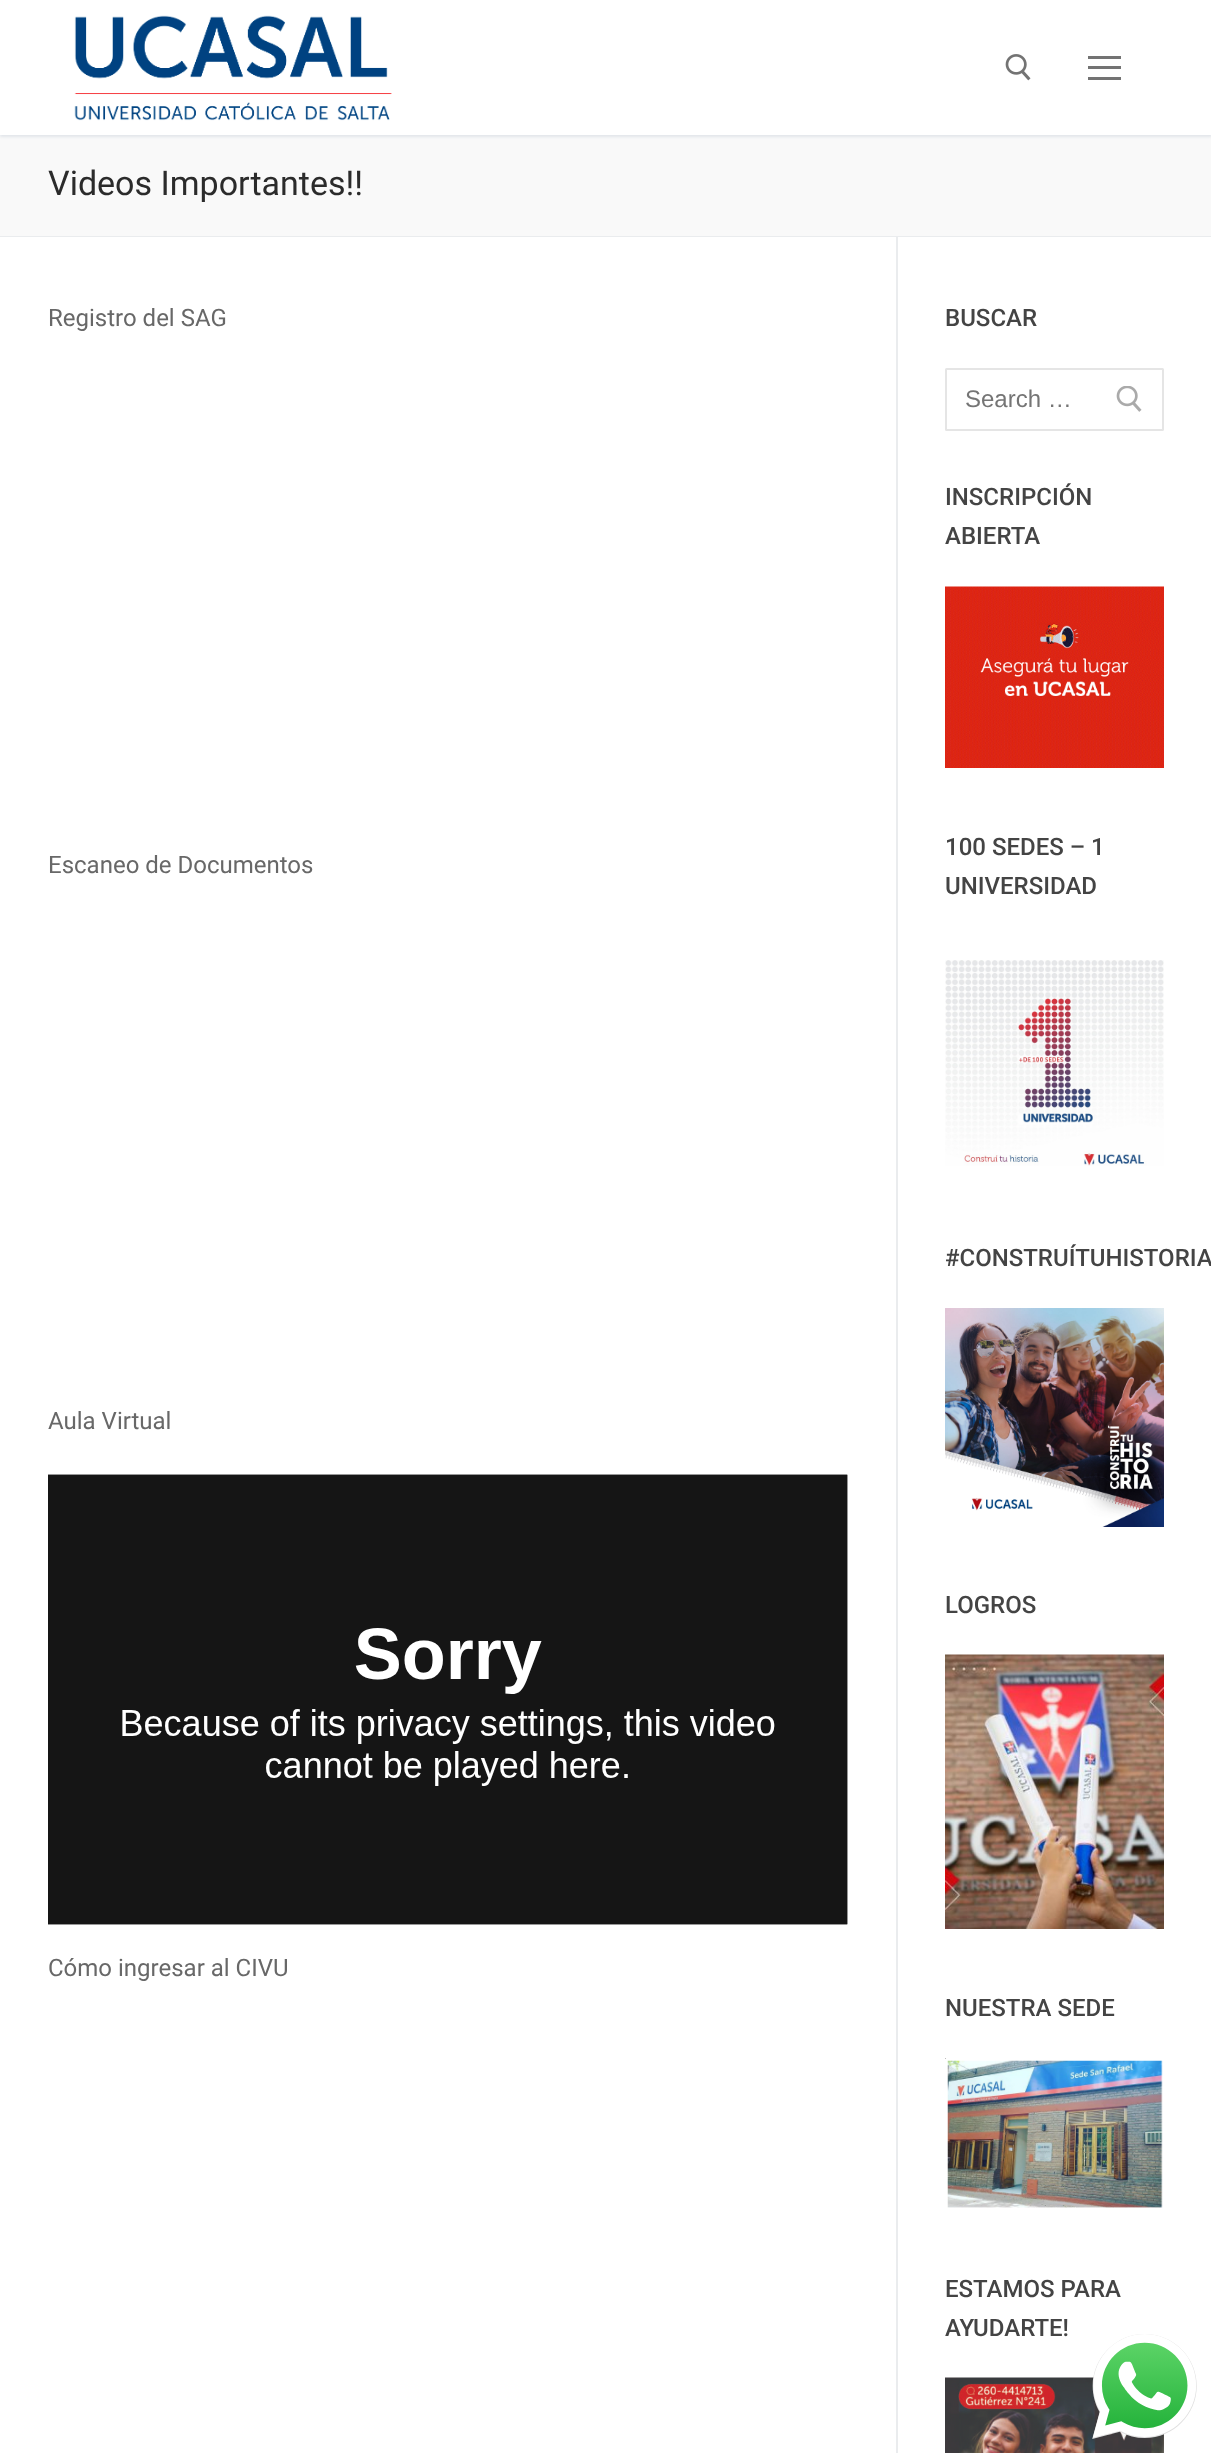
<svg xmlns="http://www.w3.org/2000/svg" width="1211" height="2453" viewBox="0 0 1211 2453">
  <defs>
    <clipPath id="clip1"><rect x="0" y="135" width="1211" height="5"/></clipPath>
    <filter id="blur1" x="-50%" y="-200%" width="200%" height="500%"><feGaussianBlur stdDeviation="1.5"/></filter>
  </defs>
  <rect width="100%" height="100%" fill="#ffffff"/>
  <rect x="0" y="135" width="1211" height="101" fill="#f9f9f9"/>
  <g clip-path="url(#clip1)">
    <rect x="0" y="2" width="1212" height="135" fill="#e1e5ea" filter="url(#blur1)"/>
  </g>
  <image x="74" y="15" width="318" height="106" href="img1.png"/>
  <image x="1005" y="54" width="26" height="27" href="img2.png"/>
  <rect x="1088" y="66" width="33" height="3" fill="#737373"/>
  <rect x="1088" y="56" width="33" height="3" fill="#737373"/>
  <rect x="1088" y="77" width="33" height="3" fill="#737373"/>
  <rect x="0" y="236" width="1211" height="1" fill="#eaecee"/>
  <text x="48" y="195" font-family="Roboto" font-size="34" fill="#2b2b2b">Videos Importantes!!</text>
  <rect x="896" y="237" width="2" height="2216" fill="#eaecee"/>
  <text x="48" y="326" font-family="Roboto" font-size="24" fill="#686868">Registro del SAG</text>
  <text x="48" y="873" font-family="Roboto" font-size="24" fill="#686868">Escaneo de Documentos</text>
  <text x="48" y="1429" font-family="Roboto" font-size="24" fill="#686868">Aula Virtual</text>
  <image x="48" y="1474" width="800" height="451" href="img3.png"/>
  <text x="48" y="1976" font-family="Roboto" font-size="24" fill="#686868">Cómo ingresar al CIVU</text>
  <text x="945" y="326" font-family="Roboto" font-size="24" font-weight="500" fill="#444444">BUSCAR</text>
  <rect x="946" y="369" width="217" height="61" rx="0.5" fill="none" stroke="#e5e5e5" stroke-width="2"/>
  <text x="965" y="407" font-family="Liberation Sans" font-size="24" fill="#757575">Search …</text>
  <image x="1116" y="386" width="26" height="26" href="img4.png"/>
  <text x="945" y="505" font-family="Roboto" font-size="24" font-weight="500" fill="#444444">INSCRIPCIÓN</text>
  <text x="945" y="544" font-family="Roboto" font-size="24" font-weight="500" fill="#444444">ABIERTA</text>
  <image x="945" y="586" width="219" height="182" href="img5.png"/>
  <text x="945" y="855" font-family="Roboto" font-size="24" font-weight="500" fill="#444444">100 SEDES – 1</text>
  <text x="945" y="894" font-family="Roboto" font-size="24" font-weight="500" fill="#444444">UNIVERSIDAD</text>
  <image x="945" y="960" width="219" height="206" href="img6.png"/>
  <text x="945" y="1266" font-family="Roboto" font-size="24" font-weight="500" fill="#444444">#CONSTRUÍTUHISTORIA</text>
  <image x="945" y="1308" width="219" height="219" href="img7.png"/>
  <text x="945" y="1613" font-family="Roboto" font-size="24" font-weight="500" fill="#444444">LOGROS</text>
  <image x="945" y="1654" width="219" height="275" href="img8.png"/>
  <text x="945" y="2016" font-family="Roboto" font-size="24" font-weight="500" fill="#444444">NUESTRA SEDE</text>
  <image x="945" y="2058" width="218" height="150" href="img9.png"/>
  <text x="945" y="2297" font-family="Roboto" font-size="24" font-weight="500" fill="#444444">ESTAMOS PARA</text>
  <text x="945" y="2336" font-family="Roboto" font-size="24" font-weight="500" fill="#444444">AYUDARTE!</text>
  <image x="945" y="2377" width="219" height="76" href="img10.png"/>
  <image x="1092" y="2334" width="105" height="105" href="img11.png"/>
</svg>
